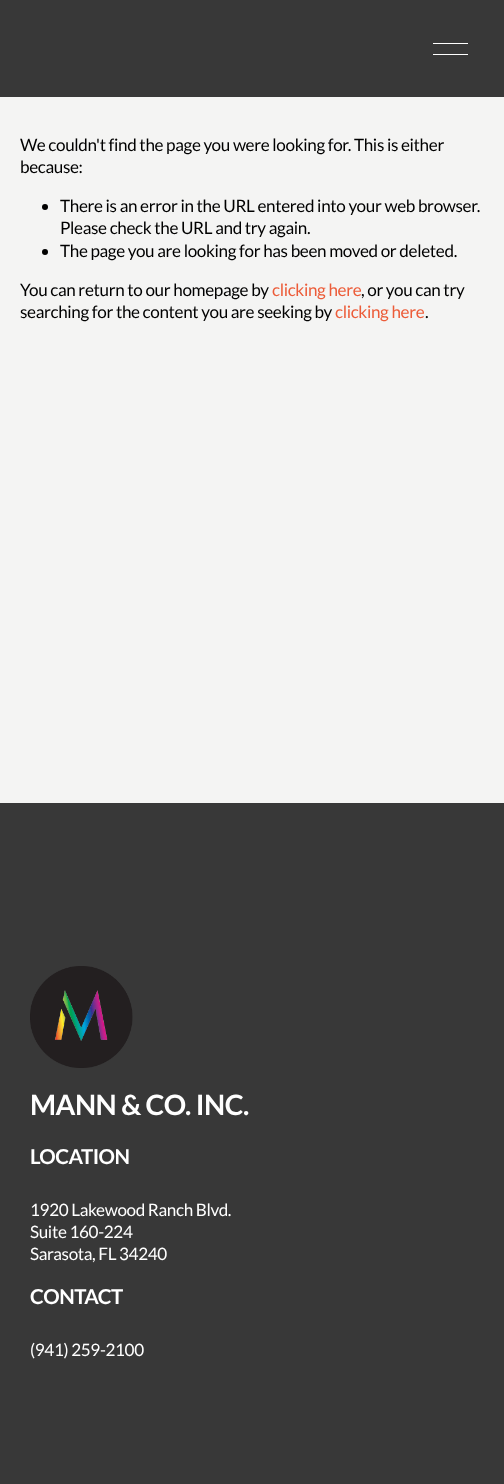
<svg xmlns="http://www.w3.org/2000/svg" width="504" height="1484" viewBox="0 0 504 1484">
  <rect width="100%" height="100%" fill="#f4f4f3"/>
  <rect x="0" y="0" width="504" height="97" fill="#383838"/>
  <rect x="433" y="43" width="35" height="1" fill="#ffffff"/>
  <rect x="433" y="54" width="35" height="1" fill="#ffffff"/>
  <text x="20" y="151" font-family="Lato" font-size="17.1" letter-spacing="-0.35" fill="#000000">We couldn't find the page you were looking for. This is either</text>
  <text x="20" y="173" font-family="Lato" font-size="17.1" letter-spacing="-0.35" fill="#000000">because:</text>
  <circle cx="45" cy="207" r="3" fill="#000000"/>
  <text x="60" y="212" font-family="Lato" font-size="17.1" letter-spacing="-0.35" fill="#000000">There is an error in the URL entered into your web browser.</text>
  <text x="60" y="234" font-family="Lato" font-size="17.1" letter-spacing="-0.35" fill="#000000">Please check the URL and try again.</text>
  <circle cx="45" cy="252" r="3" fill="#000000"/>
  <text x="60" y="257" font-family="Lato" font-size="17.1" letter-spacing="-0.35" fill="#000000">The page you are looking for has been moved or deleted.</text>
  <text x="20" y="296" font-family="Lato" font-size="17.1" letter-spacing="-0.35" fill="#000000">You can return to our homepage by</text>
  <text x="272" y="296" font-family="Lato" font-size="17.1" letter-spacing="-0.35" fill="#ec5c39">clicking here</text>
  <text x="361" y="296" font-family="Lato" font-size="17.1" letter-spacing="-0.35" fill="#000000">, or you can try</text>
  <text x="20" y="318" font-family="Lato" font-size="17.1" letter-spacing="-0.35" fill="#000000">searching for the content you are seeking by</text>
  <text x="335" y="318" font-family="Lato" font-size="17.1" letter-spacing="-0.35" fill="#ec5c39">clicking here</text>
  <text x="425" y="318" font-family="Lato" font-size="17.1" letter-spacing="-0.35" fill="#000000">.</text>
  <rect x="0" y="803" width="504" height="681" fill="#383838"/>
  <image x="30" y="966" width="103" height="102" href="img1.png"/>
  <text x="30" y="1115" font-family="Lato" font-size="28" font-weight="bold" letter-spacing="-0.5" fill="#ffffff">MANN &amp; CO. INC.</text>
  <text x="30" y="1164" font-family="Lato" font-size="20.5" font-weight="bold" letter-spacing="-0.5" fill="#ffffff">LOCATION</text>
  <text x="30" y="1216" font-family="Lato" font-size="17.1" letter-spacing="-0.35" fill="#ffffff">1920 Lakewood Ranch Blvd.</text>
  <text x="30" y="1238" font-family="Lato" font-size="17.1" letter-spacing="-0.35" fill="#ffffff">Suite 160-224</text>
  <text x="30" y="1260" font-family="Lato" font-size="17.1" letter-spacing="-0.35" fill="#ffffff">Sarasota, FL 34240</text>
  <text x="30" y="1304" font-family="Lato" font-size="20.5" font-weight="bold" letter-spacing="-0.5" fill="#ffffff">CONTACT</text>
  <text x="30" y="1356" font-family="Lato" font-size="17.1" letter-spacing="-0.35" fill="#ffffff">(941) 259-2100</text>
</svg>
